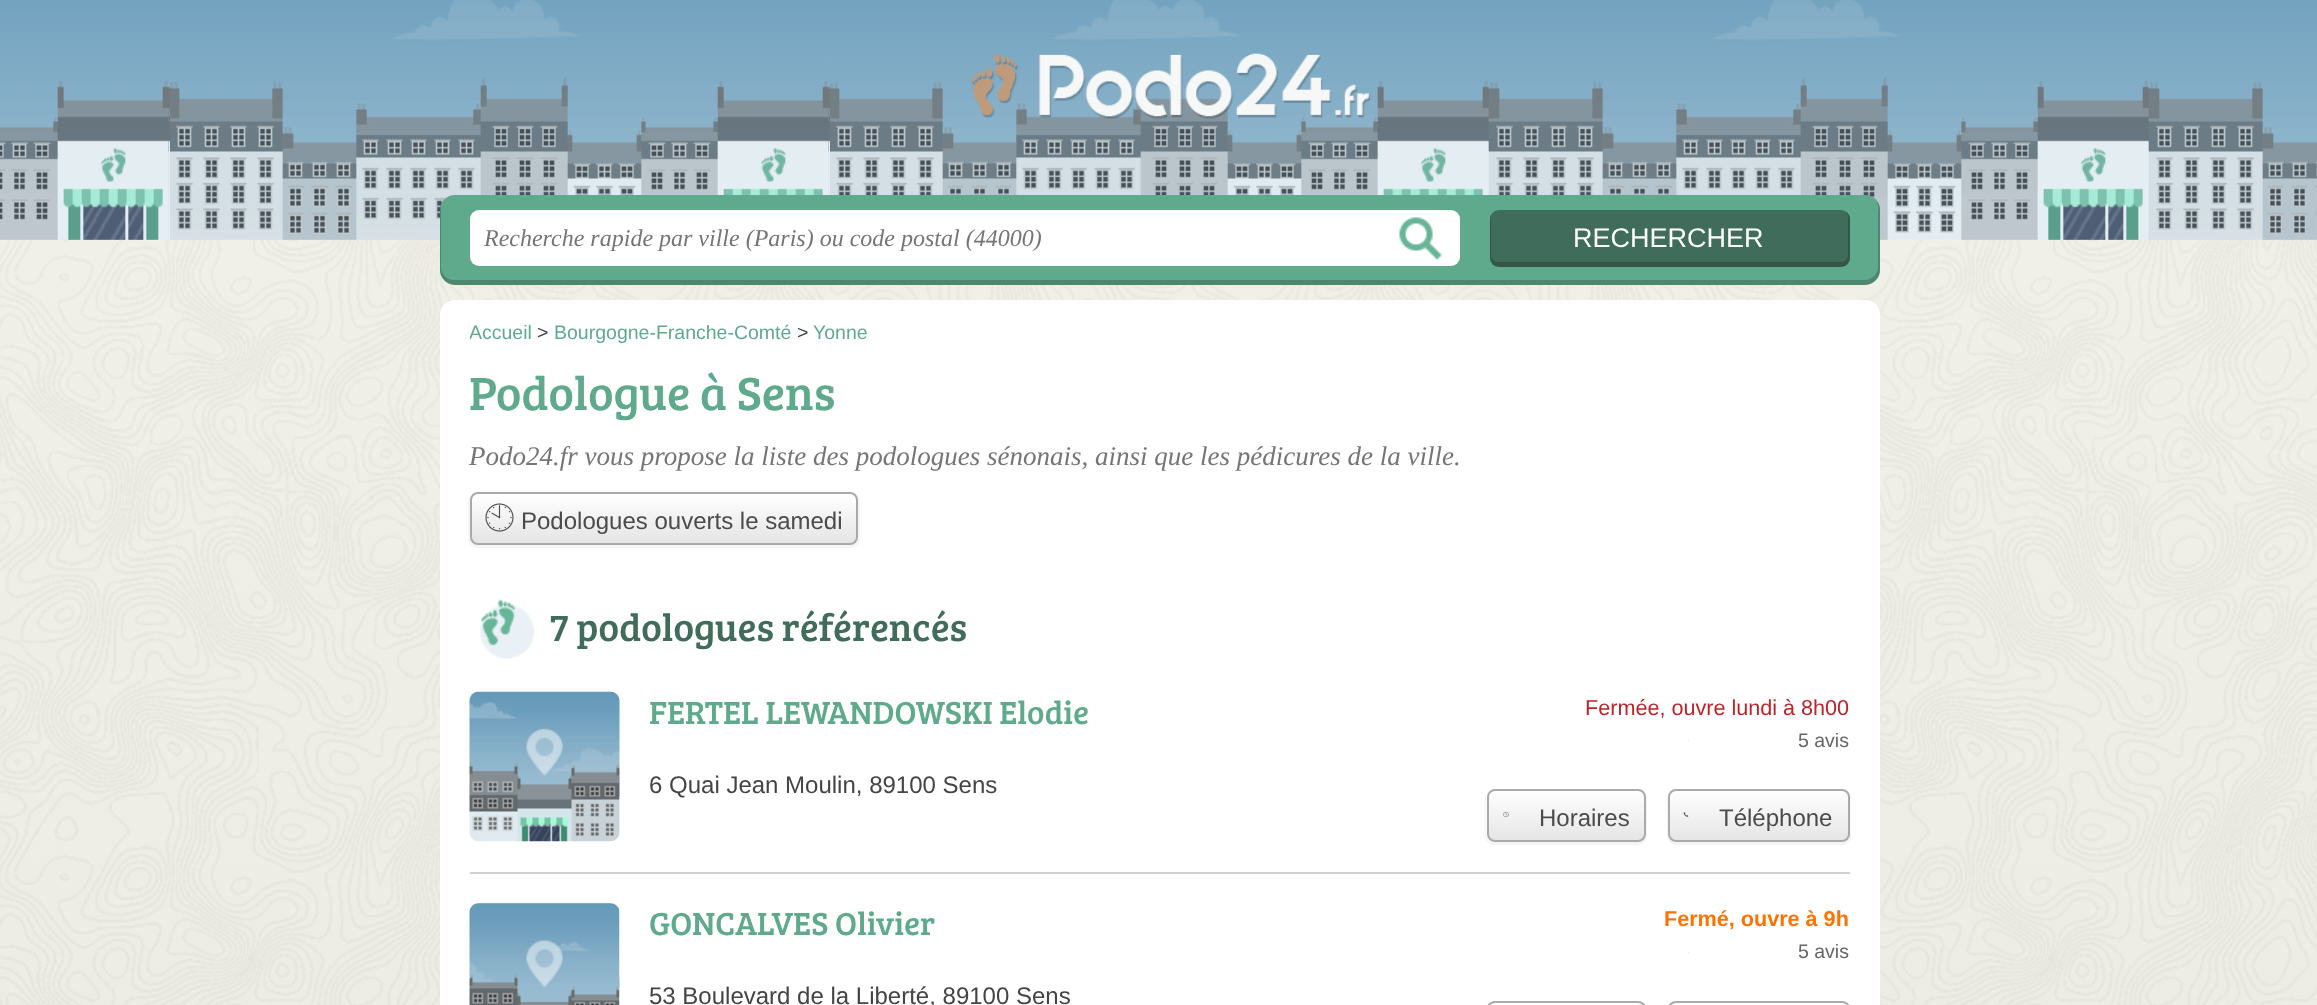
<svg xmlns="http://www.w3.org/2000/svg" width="2317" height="1005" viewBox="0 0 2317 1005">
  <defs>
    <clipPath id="clip1"><rect x="470" y="315" width="1380" height="36"/></clipPath>
    <clipPath id="clip2"><rect x="470" y="492" width="388" height="53" rx="8"/></clipPath>
    <linearGradient id="g1" gradientUnits="userSpaceOnUse" x1="664" y1="494" x2="664" y2="543"><stop offset="0" stop-color="#ffffff"/><stop offset="1" stop-color="#e5e5e5"/></linearGradient>
    <clipPath id="clip3"><rect x="1487" y="789" width="159" height="53" rx="8"/></clipPath>
    <linearGradient id="g2" gradientUnits="userSpaceOnUse" x1="1566" y1="791" x2="1566" y2="840"><stop offset="0" stop-color="#ffffff"/><stop offset="1" stop-color="#e5e5e5"/></linearGradient>
    <clipPath id="clip4"><rect x="1668" y="789" width="182" height="53" rx="8"/></clipPath>
    <linearGradient id="g3" gradientUnits="userSpaceOnUse" x1="1759" y1="791" x2="1759" y2="840"><stop offset="0" stop-color="#ffffff"/><stop offset="1" stop-color="#e5e5e5"/></linearGradient>
  </defs>
  <rect width="100%" height="100%" fill="#ffffff"/>
  <image x="0" y="239" width="2317" height="766" href="img1.png"/>
  <image x="0" y="0" width="2317" height="240" href="img2.png"/>
  <image x="970" y="53" width="401" height="66" href="img3.png"/>
  <rect x="440" y="195" width="1440" height="90" rx="15" fill="#5faa8d"/>
  <path d="M442 203C441 205 440 208 440 210V270C440 278 447 285 455 285H1865C1873 285 1880 278 1880 270V210C1880 205 1878 201 1875 198C1877 201 1878 204 1878 207V267C1878 274 1872 280 1864 280H454C447 280 441 274 441 267V207Z" fill="#000000" fill-opacity="0.2"/>
  <rect x="470" y="210" width="990" height="56" rx="9" fill="#ffffff"/>
  <image x="1399" y="217" width="43" height="43" href="img4.png"/>
  <text x="484" y="246" font-family="Liberation Serif" font-size="24" font-style="italic" fill="#757575">Recherche rapide par ville (Paris) ou code postal (44000)</text>
  <rect x="1490" y="210" width="360" height="57" rx="9" fill="#406c5b"/>
  <path d="M1491 215C1490 216 1490 217 1490 219V258C1490 263 1494 267 1499 267H1841C1846 267 1850 263 1850 258V219C1850 216 1849 214 1847 212L1848 216V255C1848 259 1845 262 1840 262H1498C1494 262 1491 259 1491 255Z" fill="#000000" fill-opacity="0.2"/>
  <text x="1573" y="247" font-family="Liberation Sans" font-size="27" fill="#ffffff">RECHERCHER</text>
  <path d="M455 300H1865C1873.5 300 1880 306.5 1880 315V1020H440V315C440 306.5 446.5 300 455 300Z" fill="#ffffff"/>
  <g clip-path="url(#clip1)">
    <text x="469" y="339" font-family="Liberation Sans" font-size="19.5" fill="#5faa8d">Accueil</text>
  </g>
  <text x="537" y="339" font-family="Liberation Sans" font-size="19.5" fill="#444444">&gt;</text>
  <text x="554" y="339" font-family="Liberation Sans" font-size="19.5" fill="#5faa8d">Bourgogne-Franche-Comté</text>
  <text x="797" y="339" font-family="Liberation Sans" font-size="19.5" fill="#444444">&gt;</text>
  <text x="813" y="339" font-family="Liberation Sans" font-size="19.5" fill="#5faa8d">Yonne</text>
  <text x="469" y="410" font-family="Bree Serif" font-size="48" fill="#5faa8d">Podologue à Sens</text>
  <text x="469" y="465" font-family="Liberation Serif" font-size="27" font-style="italic" fill="#757575">Podo24.fr vous propose la liste des podologues sénonais, ainsi que les pédicures de la ville.</text>
  <path d="M860 501C860 496 856 492 851 492C855 492 858 495 858 499V537C858 541 855 544 851 544H477C473 544 470 541 470 537V499C470 496 471 493 474 492C471 494 468 497 468 501V539C468 544 472 548 477 548H851C856 548 860 544 860 539Z" fill="#f5f5f5"/>
  <g clip-path="url(#clip2)">
    <rect x="470" y="494" width="388" height="49" fill="url(#g1)"/>
  </g>
  <rect x="471" y="493" width="386" height="51" rx="7" fill="none" stroke="#aaaaaa" stroke-width="2"/>
  <image x="485" y="503" width="29" height="29" href="img5.png"/>
  <text x="521" y="529" font-family="Liberation Sans" font-size="24" fill="#4b4b4b">Podologues ouverts le samedi</text>
  <image x="480" y="599" width="54" height="60" href="img6.png"/>
  <text x="550" y="641" font-family="Bree Serif" font-size="39" fill="#406c5b">7 podologues référencés</text>
  <rect x="470" y="872" width="1380" height="2" fill="#d1d1d1"/>
  <image x="469" y="691" width="151" height="151" href="img7.png"/>
  <text x="649" y="724" font-family="Bree Serif" font-size="33" fill="#5faa8d">FERTEL LEWANDOWSKI Elodie</text>
  <text x="1585" y="715" font-family="Liberation Sans" font-size="21.6" fill="#be2329">Fermée, ouvre lundi à 8h00</text>
  <image x="1687" y="740" width="2" height="1" href="img8.png"/>
  <text x="1798" y="747" font-family="Liberation Sans" font-size="19.5" fill="#666666">5 avis</text>
  <text x="649" y="793" font-family="Liberation Sans" font-size="24" fill="#444444">6 Quai Jean Moulin, 89100 Sens</text>
  <path d="M1641 789C1644 790 1646 793 1646 796V834C1646 838 1642 842 1638 842H1494C1490 842 1486 838 1486 834V796C1486 793 1488 790 1491 789C1488 791 1485 794 1485 798V836C1485 841 1489 845 1494 845H1638C1643 845 1647 841 1647 836V798C1647 794 1644 791 1641 789Z" fill="#f5f5f5"/>
  <g clip-path="url(#clip3)">
    <rect x="1487" y="791" width="159" height="49" fill="url(#g2)"/>
  </g>
  <rect x="1488" y="790" width="157" height="51" rx="7" fill="none" stroke="#aaaaaa" stroke-width="2"/>
  <image x="1503" y="811" width="6" height="7" href="img9.png"/>
  <text x="1539" y="826" font-family="Liberation Sans" font-size="24" fill="#4b4b4b">Horaires</text>
  <path d="M1845 789C1848 790 1850 793 1850 796V834C1850 838 1846 842 1842 842H1675C1671 842 1668 838 1668 834V796C1668 794 1669 793 1670 792C1668 793 1667 796 1667 798V836C1667 841 1671 845 1676 845H1842C1847 845 1851 841 1851 836V798C1851 794 1848 791 1845 789Z" fill="#f5f5f5"/>
  <g clip-path="url(#clip4)">
    <rect x="1668" y="791" width="182" height="49" fill="url(#g3)"/>
  </g>
  <rect x="1669" y="790" width="180" height="51" rx="7" fill="none" stroke="#aaaaaa" stroke-width="2"/>
  <image x="1683" y="812" width="6" height="5" href="img10.png"/>
  <text x="1719" y="826" font-family="Liberation Sans" font-size="24" fill="#4b4b4b">Téléphone</text>
  <image x="469" y="903" width="151" height="102" href="img11.png"/>
  <text x="649" y="935" font-family="Bree Serif" font-size="33" fill="#5faa8d">GONCALVES Olivier</text>
  <text x="1664" y="926" font-family="Liberation Sans" font-size="21.6" font-weight="bold" fill="#ff7200">Fermé, ouvre à 9h</text>
  <image x="1687" y="951" width="2" height="2" href="img12.png"/>
  <text x="1798" y="958" font-family="Liberation Sans" font-size="19.5" fill="#666666">5 avis</text>
  <text x="649" y="1004" font-family="Liberation Sans" font-size="24" fill="#444444">53 Boulevard de la Liberté, 89100 Sens</text>
  <rect x="1488" y="1002" width="157" height="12" rx="7" fill="none" stroke="#aaaaaa" stroke-width="2"/>
  <rect x="1669" y="1002" width="180" height="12" rx="7" fill="none" stroke="#aaaaaa" stroke-width="2"/>
</svg>
